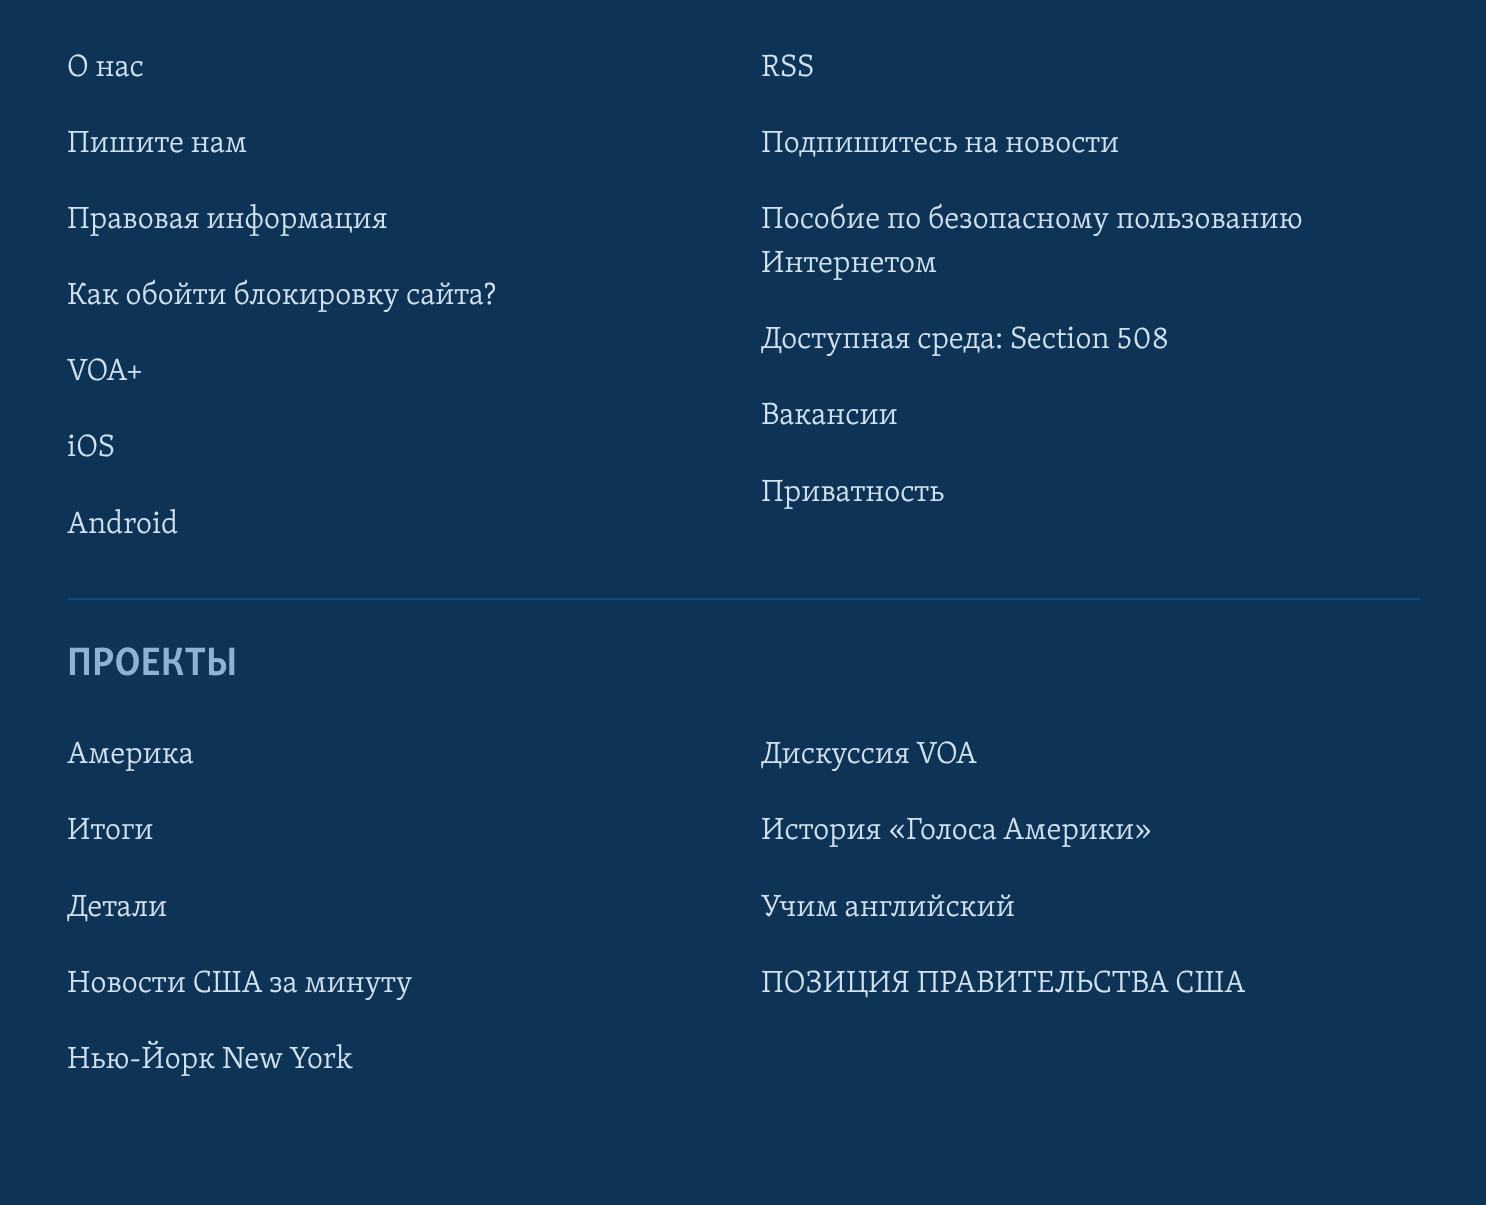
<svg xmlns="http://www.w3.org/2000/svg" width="1486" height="1205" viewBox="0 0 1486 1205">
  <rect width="100%" height="100%" fill="#0d3456"/>
  <text x="67" y="76" font-family="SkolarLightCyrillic" font-size="31.5" font-weight="300" fill="#d1e1ee">О нас</text>
  <text x="761" y="76" font-family="SkolarLightCyrillic" font-size="31.5" font-weight="300" fill="#d1e1ee">RSS</text>
  <text x="67" y="152" font-family="SkolarLightCyrillic" font-size="31.5" font-weight="300" fill="#d1e1ee">Пишите нам</text>
  <text x="761" y="152" font-family="SkolarLightCyrillic" font-size="31.5" font-weight="300" fill="#d1e1ee">Подпишитесь на новости</text>
  <text x="67" y="228" font-family="SkolarLightCyrillic" font-size="31.5" font-weight="300" fill="#d1e1ee">Правовая информация</text>
  <text x="761" y="228" font-family="SkolarLightCyrillic" font-size="31.5" font-weight="300" fill="#d1e1ee">Пособие по безопасному пользованию</text>
  <text x="761" y="272" font-family="SkolarLightCyrillic" font-size="31.5" font-weight="300" fill="#d1e1ee">Интернетом</text>
  <text x="67" y="304" font-family="SkolarLightCyrillic" font-size="31.5" font-weight="300" fill="#d1e1ee">Как обойти блокировку сайта?</text>
  <text x="761" y="348" font-family="SkolarLightCyrillic" font-size="31.5" font-weight="300" fill="#d1e1ee">Доступная среда: Section 508</text>
  <text x="67" y="380" font-family="SkolarLightCyrillic" font-size="31.5" font-weight="300" fill="#d1e1ee">VOA+</text>
  <text x="761" y="424" font-family="SkolarLightCyrillic" font-size="31.5" font-weight="300" fill="#d1e1ee">Вакансии</text>
  <text x="67" y="456" font-family="SkolarLightCyrillic" font-size="31.5" font-weight="300" fill="#d1e1ee">iOS</text>
  <text x="761" y="501" font-family="SkolarLightCyrillic" font-size="31.5" font-weight="300" fill="#d1e1ee">Приватность</text>
  <text x="67" y="533" font-family="SkolarLightCyrillic" font-size="31.5" font-weight="300" fill="#d1e1ee">Android</text>
  <rect x="68" y="598" width="1352" height="2" fill="#134976"/>
  <text x="67" y="675" font-family="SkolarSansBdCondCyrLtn" font-size="40.5" font-weight="bold" fill="#8db3d4">ПРОЕКТЫ</text>
  <text x="67" y="763" font-family="SkolarLightCyrillic" font-size="31.5" font-weight="300" fill="#d1e1ee">Америка</text>
  <text x="761" y="763" font-family="SkolarLightCyrillic" font-size="31.5" font-weight="300" fill="#d1e1ee">Дискуссия VOA</text>
  <text x="67" y="839" font-family="SkolarLightCyrillic" font-size="31.5" font-weight="300" fill="#d1e1ee">Итоги</text>
  <text x="761" y="839" font-family="SkolarLightCyrillic" font-size="31.5" font-weight="300" fill="#d1e1ee">История «Голоса Америки»</text>
  <text x="67" y="916" font-family="SkolarLightCyrillic" font-size="31.5" font-weight="300" fill="#d1e1ee">Детали</text>
  <text x="761" y="916" font-family="SkolarLightCyrillic" font-size="31.5" font-weight="300" fill="#d1e1ee">Учим английский</text>
  <text x="67" y="992" font-family="SkolarLightCyrillic" font-size="31.5" font-weight="300" fill="#d1e1ee">Новости США за минуту</text>
  <text x="761" y="992" font-family="SkolarLightCyrillic" font-size="31.5" font-weight="300" fill="#d1e1ee">ПОЗИЦИЯ ПРАВИТЕЛЬСТВА США</text>
  <text x="67" y="1068" font-family="SkolarLightCyrillic" font-size="31.5" font-weight="300" fill="#d1e1ee">Нью-Йорк New York</text>
</svg>
